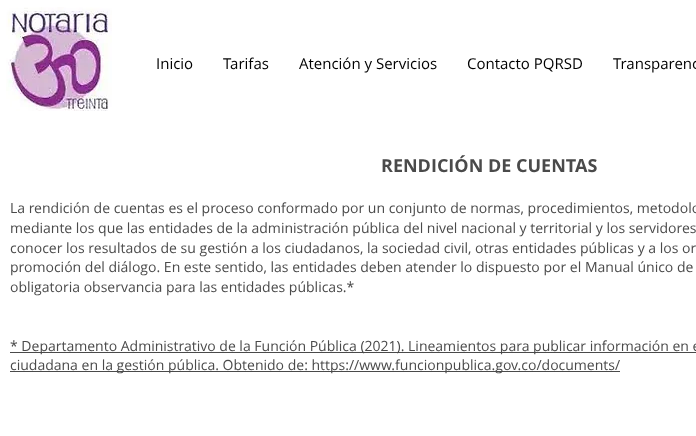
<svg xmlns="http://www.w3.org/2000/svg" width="696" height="436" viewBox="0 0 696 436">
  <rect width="100%" height="100%" fill="#ffffff"/>
  <image x="6" y="7" width="106" height="104" href="img1.png"/>
  <text x="156" y="69" font-family="Open Sans" font-size="15" fill="#000000">Inicio</text>
  <text x="223" y="69" font-family="Open Sans" font-size="15" fill="#000000">Tarifas</text>
  <text x="299" y="69" font-family="Open Sans" font-size="15" fill="#000000">Atención y Servicios</text>
  <text x="467" y="69" font-family="Open Sans" font-size="15" fill="#000000">Contacto PQRSD</text>
  <text x="613" y="69" font-family="Open Sans" font-size="15" fill="#000000">Transparenc</text>
  <text x="381" y="172" font-family="Open Sans" font-size="18" font-weight="bold" fill="#4a4a4a">RENDICIÓN DE CUENTAS</text>
  <text x="10" y="213" font-family="Open Sans" font-size="14" fill="#4a4a4a">La rendición de cuentas es el proceso conformado por un conjunto de normas, procedimientos, metodolo</text>
  <text x="10" y="233" font-family="Open Sans" font-size="14" fill="#4a4a4a">mediante los que las entidades de la administración pública del nivel nacional y territorial y los servidores</text>
  <text x="10" y="253" font-family="Open Sans" font-size="14" fill="#4a4a4a">conocer los resultados de su gestión a los ciudadanos, la sociedad civil, otras entidades públicas y a los or</text>
  <text x="10" y="272" font-family="Open Sans" font-size="14" fill="#4a4a4a">promoción del diálogo. En este sentido, las entidades deben atender lo dispuesto por el Manual único de</text>
  <text x="10" y="292" font-family="Open Sans" font-size="14" fill="#4a4a4a">obligatoria observancia para las entidades públicas.*</text>
  <rect x="10" y="352" width="686" height="1" fill="#4a4a4a"/>
  <text x="10" y="351" font-family="Open Sans" font-size="14" fill="#4a4a4a">* Departamento Administrativo de la Función Pública (2021). Lineamientos para publicar información en e</text>
  <rect x="10" y="371" width="610" height="1" fill="#4a4a4a"/>
  <text x="10" y="370" font-family="Open Sans" font-size="14" fill="#4a4a4a">ciudadana en la gestión pública. Obtenido de: https://www.funcionpublica.gov.co/documents/</text>
</svg>
